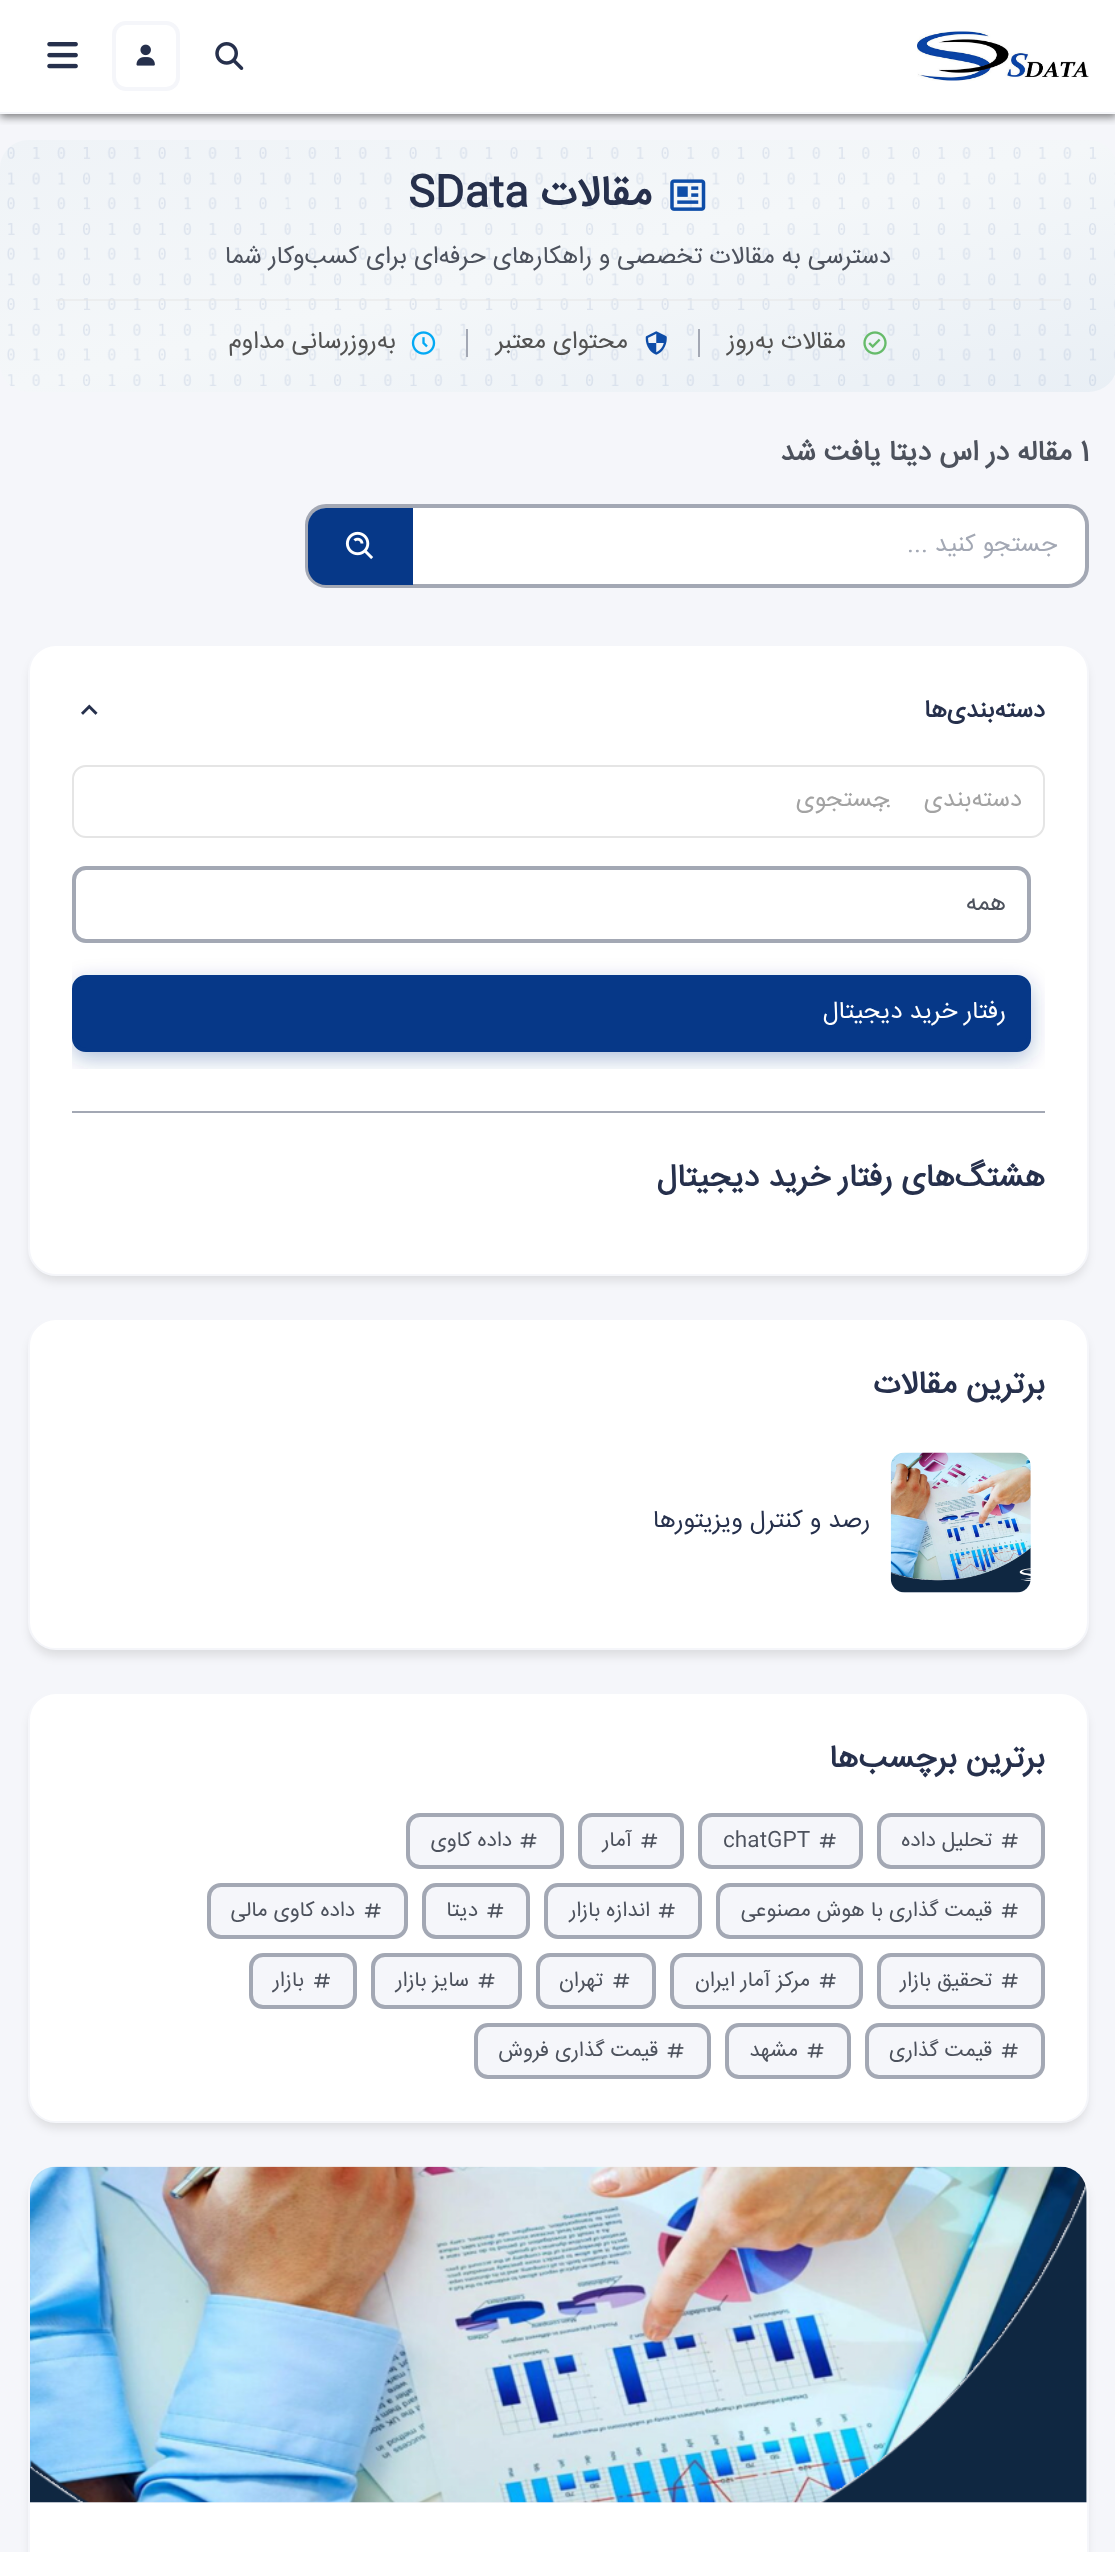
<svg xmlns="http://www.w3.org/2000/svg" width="1115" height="2552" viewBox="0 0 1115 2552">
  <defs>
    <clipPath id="clip1"><rect x="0" y="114" width="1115" height="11"/></clipPath>
    <filter id="blur1" x="-50%" y="-200%" width="200%" height="500%"><feGaussianBlur stdDeviation="4.5"/></filter>
    <linearGradient id="g1" gradientUnits="userSpaceOnUse" x1="504" y1="26" x2="612" y2="506"><stop offset="0" stop-color="#eff3f7"/><stop offset="0.5" stop-color="#f4f7f9"/><stop offset="1" stop-color="#e9eff5"/></linearGradient>
    <filter id="blur2" x="-50%" y="-200%" width="200%" height="500%"><feGaussianBlur stdDeviation="5"/></filter>
    <clipPath id="clip2"><rect x="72" y="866" width="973" height="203"/></clipPath>
    <filter id="blur3" x="-50%" y="-200%" width="200%" height="500%"><feGaussianBlur stdDeviation="10.5"/></filter>
  </defs>
  <rect width="100%" height="100%" fill="#f5f6fa"/>
  <g clip-path="url(#clip1)">
    <rect x="0" y="4" width="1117" height="113" fill="#000000" fill-opacity="0.5" filter="url(#blur1)"/>
  </g>
  <rect x="0" y="0" width="1115" height="112" fill="#ffffff" fill-opacity="0.95"/>
  <rect x="0" y="113" width="1115" height="1" fill="#f7f8fb"/>
  <image x="917" y="31" width="172" height="50" href="img1.png"/>
  <image x="215" y="42" width="29" height="28" href="img2.png"/>
  <rect x="114" y="23" width="64" height="66" rx="12" fill="none" stroke="#f5f6fa" stroke-width="4"/>
  <image x="136" y="44" width="19" height="22" href="img3.png"/>
  <image x="47" y="42" width="31" height="27" href="img4.png"/>
  <rect x="0" y="140" width="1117" height="252" rx="28" fill="url(#g1)"/>
  <image x="7" y="147" width="1108" height="239" href="img5.png"/>
  <image x="670" y="179" width="36" height="32" href="img6.png"/>
  <text x="652" y="205" font-family="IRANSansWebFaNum" font-size="42" font-weight="bold" direction="rtl" fill="#26304c">مقالات</text>
  <text x="408" y="205" font-family="IRANSansWebFaNum" font-size="42" font-weight="bold" fill="#26304c">SData</text>
  <text x="891" y="263" font-family="IRANSansWebFaNum" font-size="24.5" direction="rtl" fill="#4d525d">دسترسی به مقالات تخصصی و راهکارهای حرفه‌ای برای کسب‌وکار شما</text>
  <rect x="56" y="299" width="1005" height="2" fill="#e5e5e5" fill-opacity="0.5"/>
  <image x="863" y="331" width="24" height="24" href="img7.png"/>
  <text x="846" y="348" font-family="IRANSansWebFaNum" font-size="24.5" direction="rtl" fill="#525252">مقالات به‌روز</text>
  <rect x="698" y="329" width="2" height="28" fill="#a3a8b4"/>
  <image x="645" y="331" width="22" height="24" href="img8.png"/>
  <text x="628" y="348" font-family="IRANSansWebFaNum" font-size="24.5" direction="rtl" fill="#525252">محتوای معتبر</text>
  <rect x="466" y="329" width="2" height="28" fill="#a3a8b4"/>
  <image x="411" y="331" width="25" height="24" href="img9.png"/>
  <text x="396" y="348" font-family="IRANSansWebFaNum" font-size="24.5" direction="rtl" fill="#525252">به‌روزرسانی مداوم</text>
  <text x="1080" y="460" font-family="IRANSansWebFaNum" font-size="28" font-weight="bold" fill="#4d525d">1</text>
  <text x="1072" y="460" font-family="IRANSansWebFaNum" font-size="28" font-weight="bold" direction="rtl" fill="#4d525d">مقاله در اس دیتا یافت شد</text>
  <rect x="307" y="506" width="780" height="80" rx="19" fill="#ffffff" stroke="#a3a8b4" stroke-width="4"/>
  <text x="1057" y="551" font-family="IRANSansWebFaNum" font-size="24.5" direction="rtl" fill="#a3a8b4">جستجو کنید ...</text>
  <path d="M326 508H413V585H326C316 585 308 577 308 567V526C308 516 316 508 326 508Z" fill="#063888"/>
  <image x="345" y="531" width="29" height="29" href="img10.png"/>
  <rect x="30" y="653" width="1057" height="628" rx="26" fill="#000000" fill-opacity="0.1" filter="url(#blur2)"/>
  <rect x="29" y="645" width="1059" height="630" rx="27" fill="#ffffff" stroke="#f5f6fa" stroke-width="2"/>
  <text x="1045" y="717" font-family="IRANSansWebFaNum" font-size="24.5" font-weight="bold" direction="rtl" fill="#26304c">دسته‌بندی‌ها</text>
  <image x="81" y="704" width="17" height="11" href="img11.png"/>
  <rect x="73" y="766" width="971" height="71" rx="13" fill="none" stroke="#e5e5e5" stroke-width="2"/>
  <text x="889" y="806" font-family="IRANSansWebFaNum" font-size="24.5" direction="rtl" fill="#a3a3a3">جستجوی</text>
  <text x="1022" y="806" word-spacing="25" font-family="IRANSansWebFaNum" font-size="24.5" direction="rtl" fill="#a3a3a3">دسته‌بندی ...</text>
  <rect x="74" y="868" width="955" height="73" rx="12" fill="none" stroke="#a3a8b4" stroke-width="4"/>
  <text x="1006" y="910" font-family="IRANSansWebFaNum" font-size="24.5" direction="rtl" fill="#4d525d">همه</text>
  <g clip-path="url(#clip2)">
    <rect x="72" y="982" width="959" height="77" rx="14" fill="#063888" fill-opacity="0.3" filter="url(#blur3)"/>
  </g>
  <rect x="74" y="977" width="955" height="73" rx="12" fill="#063888" stroke="#063888" stroke-width="4"/>
  <text x="1006" y="1018" font-family="IRANSansWebFaNum" font-size="24.5" direction="rtl" fill="#ffffff">رفتار خرید دیجیتال</text>
  <rect x="72" y="1111" width="973" height="2" fill="#a3a8b4"/>
  <text x="1045" y="1186" font-family="IRANSansWebFaNum" font-size="31.5" font-weight="bold" direction="rtl" fill="#26304c">هشتگ‌های رفتار خرید دیجیتال</text>
  <rect x="30" y="1327" width="1057" height="329" rx="26" fill="#000000" fill-opacity="0.1" filter="url(#blur2)"/>
  <rect x="29" y="1319" width="1059" height="330" rx="27" fill="#ffffff" stroke="#f5f6fa" stroke-width="2"/>
  <text x="1045" y="1393" font-family="IRANSansWebFaNum" font-size="31.5" font-weight="bold" direction="rtl" fill="#26304c">برترین مقالات</text>
  <rect x="891" y="1453" width="140" height="140" rx="14" fill="#f5f6fa"/>
  <image x="890" y="1452" width="141" height="141" href="img12.png"/>
  <text x="870" y="1527" font-family="IRANSansWebFaNum" font-size="24.5" direction="rtl" fill="#26304c">رصد و کنترل ویزیتورها</text>
  <rect x="30" y="1701" width="1057" height="427" rx="26" fill="#000000" fill-opacity="0.1" filter="url(#blur2)"/>
  <rect x="29" y="1693" width="1059" height="429" rx="27" fill="#ffffff" stroke="#f5f6fa" stroke-width="2"/>
  <text x="1045" y="1767" font-family="IRANSansWebFaNum" font-size="31.5" font-weight="bold" direction="rtl" fill="#26304c">برترین برچسب‌ها</text>
  <rect x="879" y="1815" width="164" height="52" rx="12" fill="#f5f6fa" stroke="#a3a8b4" stroke-width="4"/>
  <image x="1001" y="1833" width="17" height="15" href="img13.png"/>
  <text x="992" y="1846" font-family="IRANSansWebFaNum" font-size="21" direction="rtl" fill="#4d525d">تحلیل داده</text>
  <rect x="700" y="1815" width="161" height="52" rx="12" fill="#f5f6fa" stroke="#a3a8b4" stroke-width="4"/>
  <image x="819" y="1833" width="17" height="15" href="img13.png"/>
  <text x="723" y="1846" font-family="IRANSansWebFaNum" font-size="21" fill="#4d525d">chatGPT</text>
  <rect x="580" y="1815" width="102" height="52" rx="12" fill="#f5f6fa" stroke="#a3a8b4" stroke-width="4"/>
  <image x="641" y="1833" width="17" height="15" href="img14.png"/>
  <text x="632" y="1846" font-family="IRANSansWebFaNum" font-size="21" direction="rtl" fill="#4d525d">آمار</text>
  <rect x="408" y="1815" width="154" height="52" rx="12" fill="#f5f6fa" stroke="#a3a8b4" stroke-width="4"/>
  <image x="520" y="1833" width="17" height="15" href="img15.png"/>
  <text x="512" y="1846" font-family="IRANSansWebFaNum" font-size="21" direction="rtl" fill="#4d525d">داده کاوی</text>
  <rect x="718" y="1885" width="325" height="52" rx="12" fill="#f5f6fa" stroke="#a3a8b4" stroke-width="4"/>
  <image x="1001" y="1903" width="17" height="15" href="img13.png"/>
  <text x="992" y="1916" font-family="IRANSansWebFaNum" font-size="21" direction="rtl" fill="#4d525d">قیمت گذاری با هوش مصنوعی</text>
  <rect x="546" y="1885" width="154" height="52" rx="12" fill="#f5f6fa" stroke="#a3a8b4" stroke-width="4"/>
  <image x="658" y="1903" width="17" height="15" href="img13.png"/>
  <text x="650" y="1916" font-family="IRANSansWebFaNum" font-size="21" direction="rtl" fill="#4d525d">اندازه بازار</text>
  <rect x="424" y="1885" width="104" height="52" rx="12" fill="#f5f6fa" stroke="#a3a8b4" stroke-width="4"/>
  <image x="487" y="1903" width="17" height="15" href="img14.png"/>
  <text x="478" y="1916" font-family="IRANSansWebFaNum" font-size="21" direction="rtl" fill="#4d525d">دیتا</text>
  <rect x="209" y="1885" width="197" height="52" rx="12" fill="#f5f6fa" stroke="#a3a8b4" stroke-width="4"/>
  <image x="364" y="1903" width="17" height="15" href="img13.png"/>
  <text x="355" y="1916" font-family="IRANSansWebFaNum" font-size="21" direction="rtl" fill="#4d525d">داده کاوی مالی</text>
  <rect x="879" y="1955" width="164" height="52" rx="12" fill="#f5f6fa" stroke="#a3a8b4" stroke-width="4"/>
  <image x="1001" y="1973" width="17" height="15" href="img13.png"/>
  <text x="992" y="1986" font-family="IRANSansWebFaNum" font-size="21" direction="rtl" fill="#4d525d">تحقیق بازار</text>
  <rect x="672" y="1955" width="189" height="52" rx="12" fill="#f5f6fa" stroke="#a3a8b4" stroke-width="4"/>
  <image x="819" y="1973" width="17" height="15" href="img13.png"/>
  <text x="810" y="1986" font-family="IRANSansWebFaNum" font-size="21" direction="rtl" fill="#4d525d">مرکز آمار ایران</text>
  <rect x="538" y="1955" width="116" height="52" rx="12" fill="#f5f6fa" stroke="#a3a8b4" stroke-width="4"/>
  <image x="613" y="1973" width="17" height="15" href="img14.png"/>
  <text x="603" y="1986" font-family="IRANSansWebFaNum" font-size="21" direction="rtl" fill="#4d525d">تهران</text>
  <rect x="373" y="1955" width="147" height="52" rx="12" fill="#f5f6fa" stroke="#a3a8b4" stroke-width="4"/>
  <image x="478" y="1973" width="17" height="15" href="img15.png"/>
  <text x="469" y="1986" font-family="IRANSansWebFaNum" font-size="21" direction="rtl" fill="#4d525d">سایز بازار</text>
  <rect x="251" y="1955" width="104" height="52" rx="12" fill="#f5f6fa" stroke="#a3a8b4" stroke-width="4"/>
  <image x="314" y="1973" width="16" height="15" href="img16.png"/>
  <text x="304" y="1986" font-family="IRANSansWebFaNum" font-size="21" direction="rtl" fill="#4d525d">بازار</text>
  <rect x="867" y="2025" width="176" height="52" rx="12" fill="#f5f6fa" stroke="#a3a8b4" stroke-width="4"/>
  <image x="1001" y="2043" width="17" height="15" href="img13.png"/>
  <text x="992" y="2056" font-family="IRANSansWebFaNum" font-size="21" direction="rtl" fill="#4d525d">قیمت گذاری</text>
  <rect x="727" y="2025" width="122" height="52" rx="12" fill="#f5f6fa" stroke="#a3a8b4" stroke-width="4"/>
  <image x="807" y="2043" width="17" height="15" href="img15.png"/>
  <text x="798" y="2056" font-family="IRANSansWebFaNum" font-size="21" direction="rtl" fill="#4d525d">مشهد</text>
  <rect x="476" y="2025" width="233" height="52" rx="12" fill="#f5f6fa" stroke="#a3a8b4" stroke-width="4"/>
  <image x="667" y="2043" width="17" height="15" href="img15.png"/>
  <text x="658" y="2056" font-family="IRANSansWebFaNum" font-size="21" direction="rtl" fill="#4d525d">قیمت گذاری فروش</text>
  <rect x="30" y="2174" width="1057" height="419" rx="26" fill="#000000" fill-opacity="0.1" filter="url(#blur2)"/>
  <rect x="29" y="2166" width="1059" height="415" rx="27" fill="#ffffff" stroke="#f5f6fa" stroke-width="2"/>
  <path d="M56 2167H1061C1075.5 2167 1087 2178.5 1087 2193V2503H30V2193C30 2178.5 41.5 2167 56 2167Z" fill="#f5f6fa"/>
  <image x="30" y="2166" width="1057" height="337" href="img17.png"/>
</svg>
